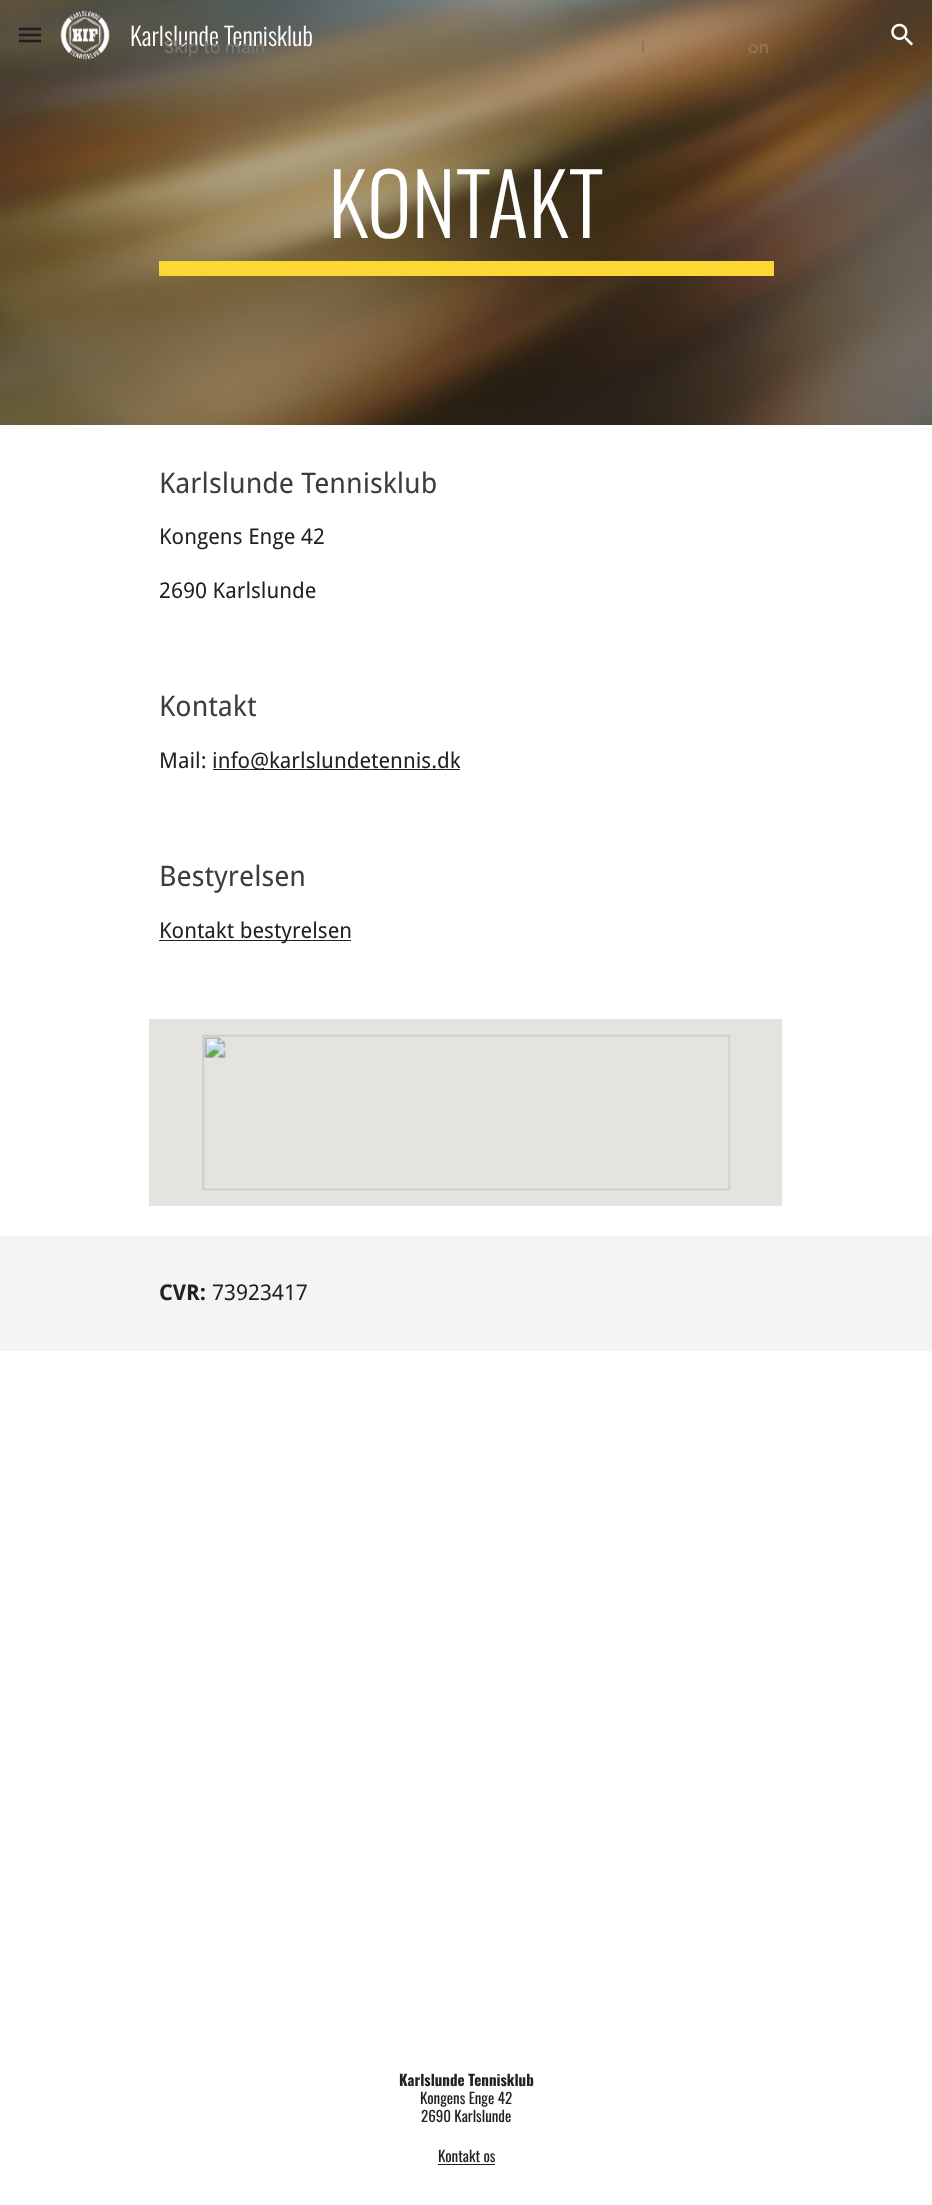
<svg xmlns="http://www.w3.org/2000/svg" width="932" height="2205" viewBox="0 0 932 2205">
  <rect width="100%" height="100%" fill="#ffffff"/>
  <image x="0" y="0" width="932" height="425" href="img3.png"/>
  <path d="M19 29H41M19 35H41M19 41H41" fill="none" stroke="#1f1f1f" stroke-width="2.5"/>
  <image x="60" y="10" width="50" height="50" href="img1.png"/>
  <text x="130" y="46" font-family="Oswald" font-size="25" font-weight="300" fill="#ffffff">Karlslunde Tennisklub</text>
  <image x="891" y="23" width="22" height="23" href="img2.png"/>
  <text x="328" y="238" font-family="Oswald" font-size="85" font-weight="300" fill="#ffffff">KONTAKT</text>
  <rect x="159" y="261" width="615" height="15" fill="#fdd835"/>
  <text x="159" y="493" font-family="Droid Sans" font-size="28.25" fill="#3d3d3d">Karlslunde Tennisklub</text>
  <text x="159" y="544" font-family="Droid Sans" font-size="21.75" fill="#212121">Kongens Enge 42</text>
  <text x="159" y="598" font-family="Droid Sans" font-size="21.75" fill="#212121">2690 Karlslunde</text>
  <text x="159" y="716" font-family="Droid Sans" font-size="28.25" fill="#3d3d3d">Kontakt</text>
  <text x="159" y="768" font-family="Droid Sans" font-size="21.75" fill="#212121">Mail:</text>
  <rect x="213" y="769" width="247" height="1" fill="#212121"/>
  <text x="212" y="768" font-family="Droid Sans" font-size="21.75" fill="#212121">info@karlslundetennis.dk</text>
  <text x="159" y="886" font-family="Droid Sans" font-size="28.25" fill="#3d3d3d">Bestyrelsen</text>
  <rect x="159" y="940" width="192" height="1" fill="#212121"/>
  <text x="159" y="938" font-family="Droid Sans" font-size="21.75" fill="#212121">Kontakt bestyrelsen</text>
  <image x="149" y="1019" width="634" height="187" href="img4.png"/>
  <rect x="0" y="1236" width="932" height="115" fill="#f4f4f4"/>
  <text x="159" y="1300" font-family="Droid Sans" font-size="21.75" font-weight="bold" fill="#212121">CVR:</text>
  <text x="212" y="1300" font-family="Droid Sans" font-size="21.75" fill="#212121">73923417</text>
  <text x="399" y="2086" font-family="Oswald" font-size="15" font-weight="bold" fill="#212121">Karlslunde Tennisklub</text>
  <text x="420" y="2104" font-family="Oswald" font-size="15" fill="#212121">Kongens Enge 42</text>
  <text x="421" y="2122" font-family="Oswald" font-size="15" fill="#212121">2690 Karlslunde</text>
  <text x="438" y="2162" font-family="Oswald" font-size="15" fill="#212121">Kontakt os</text>
  <rect x="438" y="2164" width="57" height="1" fill="#212121"/>
  <text x="164" y="53" font-family="Google Sans" font-size="17.5" font-weight="500" letter-spacing="0.25" fill="#7a756b">Skip to main</text>
  <text x="641" y="53" font-family="Google Sans" font-size="17.5" font-weight="500" letter-spacing="0.25" fill="#99734d">i</text>
  <text x="748" y="53" font-family="Google Sans" font-size="17.5" font-weight="500" letter-spacing="0.25" fill="#99734d">on</text>
</svg>
